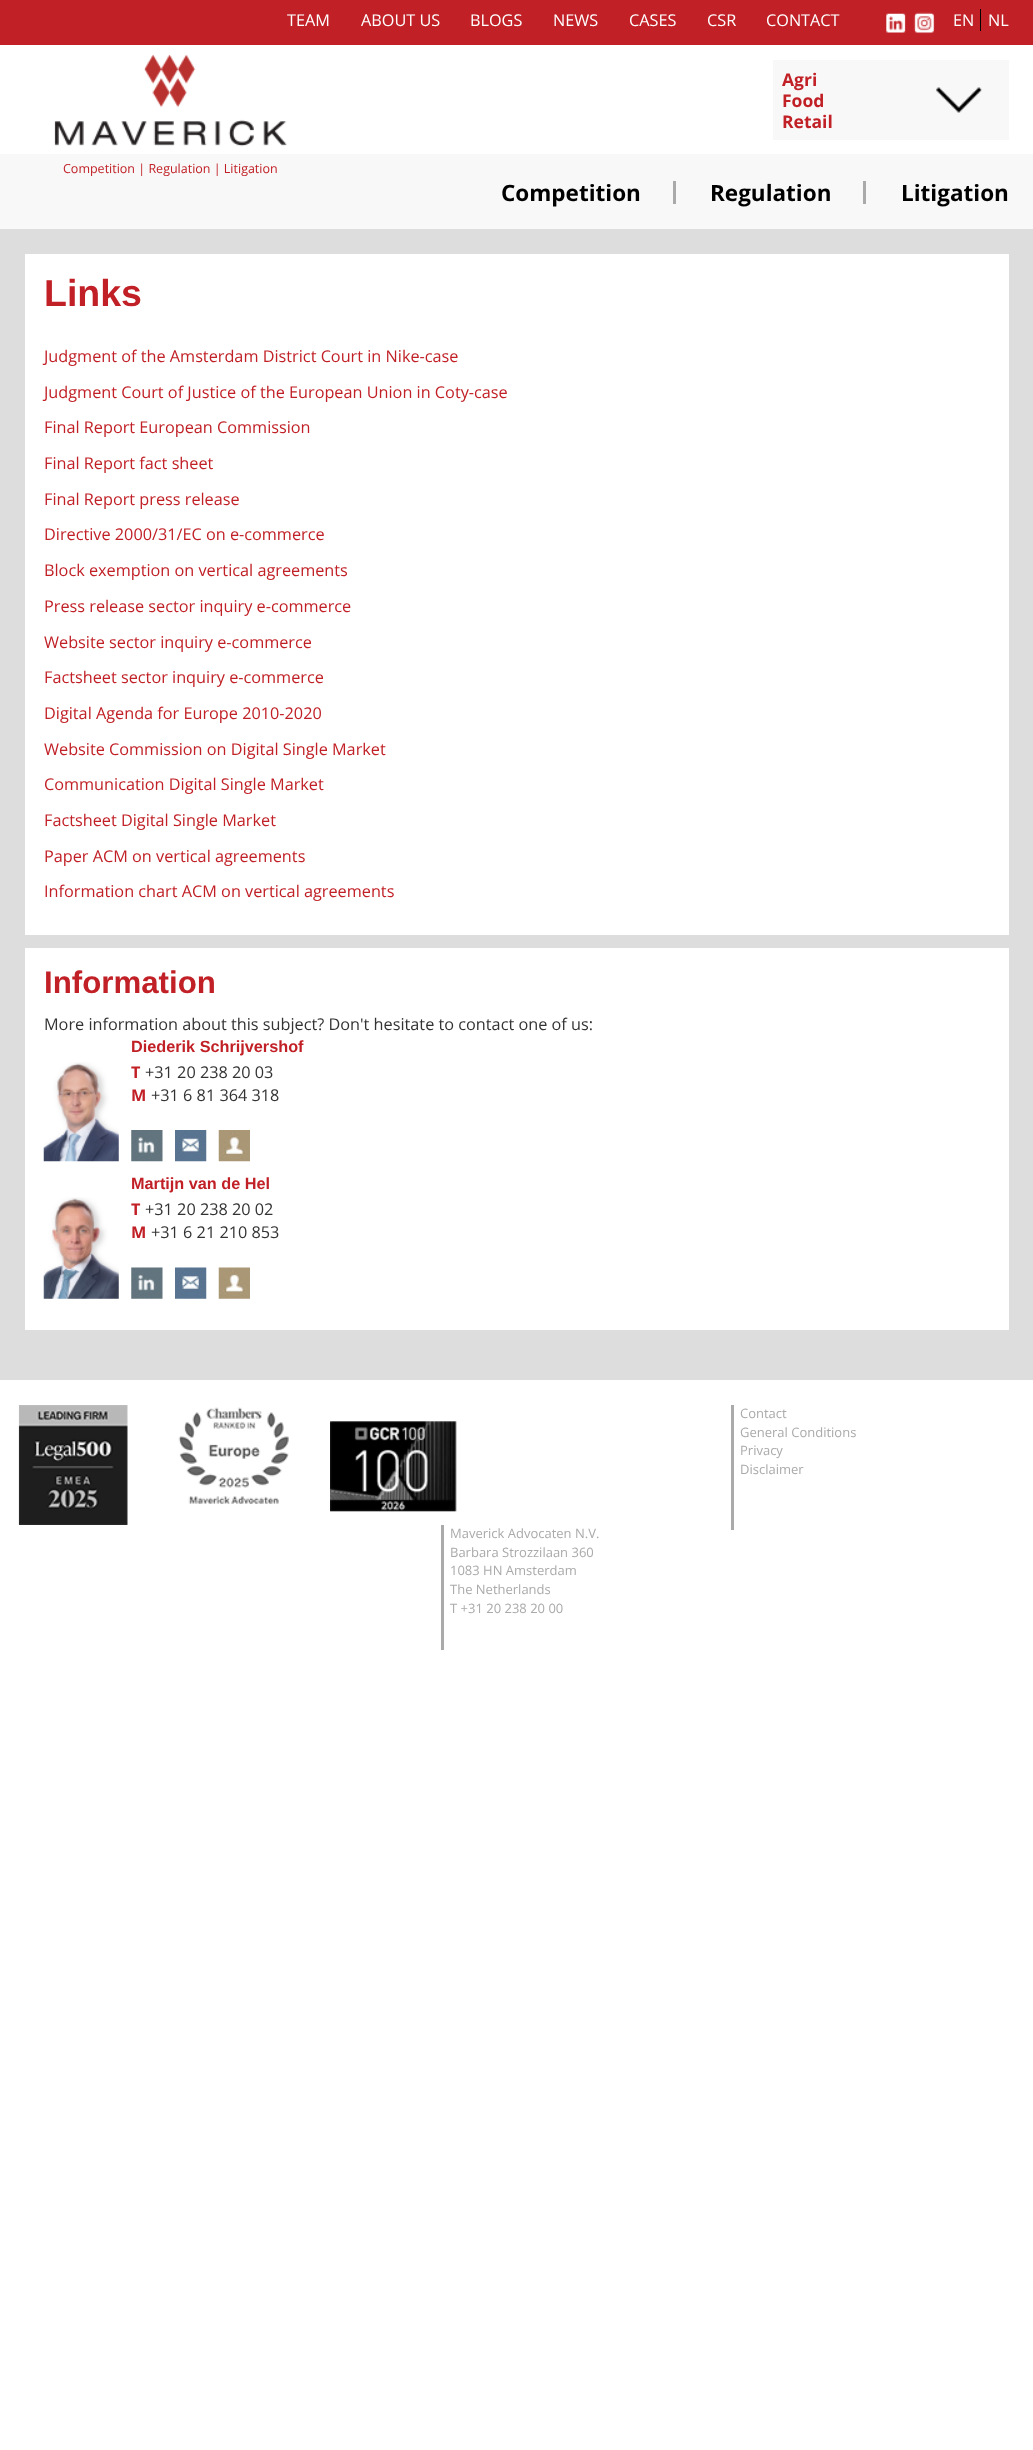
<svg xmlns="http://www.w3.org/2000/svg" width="1033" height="2450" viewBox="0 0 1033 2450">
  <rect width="100%" height="100%" fill="#ffffff"/>
  <rect x="0" y="0" width="1033" height="45" fill="#c12026"/>
  <text x="287" y="26" font-family="Open Sans" font-size="16.25" fill="#ffffff">TEAM</text>
  <text x="361" y="26" font-family="Open Sans" font-size="16.25" fill="#ffffff">ABOUT US</text>
  <text x="470" y="26" font-family="Open Sans" font-size="16.25" fill="#ffffff">BLOGS</text>
  <text x="553" y="26" font-family="Open Sans" font-size="16.25" fill="#ffffff">NEWS</text>
  <text x="629" y="26" font-family="Open Sans" font-size="16.25" fill="#ffffff">CASES</text>
  <text x="707" y="26" font-family="Open Sans" font-size="16.25" fill="#ffffff">CSR</text>
  <text x="766" y="26" font-family="Open Sans" font-size="16.25" fill="#ffffff">CONTACT</text>
  <image x="886" y="13" width="20" height="20" href="img1.png"/>
  <image x="913" y="12" width="22" height="22" href="img2.png"/>
  <text x="953" y="26" font-family="Open Sans" font-size="16.25" fill="#ffffff">EN</text>
  <rect x="980" y="9" width="1" height="22" fill="#000000"/>
  <text x="988" y="26" font-family="Open Sans" font-size="16.25" fill="#ffffff">NL</text>
  <rect x="773" y="60" width="236" height="80" fill="#f8f8f8"/>
  <text x="782" y="86" font-family="Open Sans" font-size="17.5" font-weight="bold" fill="#c12026">Agri</text>
  <text x="782" y="107" font-family="Open Sans" font-size="17.5" font-weight="bold" fill="#c12026">Food</text>
  <text x="782" y="128" font-family="Open Sans" font-size="17.5" font-weight="bold" fill="#c12026">Retail</text>
  <image x="936" y="87" width="46" height="26" href="img3.png"/>
  <image x="54" y="54" width="233" height="93" href="img4.png"/>
  <rect x="0" y="154" width="1033" height="75" fill="#f8f8f8"/>
  <text x="63" y="173" font-family="Open Sans" font-size="12.5" fill="#c12026">Competition | Regulation | Litigation</text>
  <rect x="0" y="229" width="1033" height="1151" fill="#dddddd"/>
  <rect x="673" y="181" width="3" height="23" fill="#aaaaaa"/>
  <text x="501" y="201" font-family="Open Sans" font-size="22.5" font-weight="bold" fill="#000000">Competition</text>
  <rect x="863" y="181" width="3" height="23" fill="#aaaaaa"/>
  <text x="710" y="201" font-family="Open Sans" font-size="22.5" font-weight="bold" fill="#000000">Regulation</text>
  <text x="901" y="201" font-family="Open Sans" font-size="22.5" font-weight="bold" fill="#000000">Litigation</text>
  <rect x="25" y="254" width="984" height="681" fill="#ffffff"/>
  <text x="44" y="306" font-family="Liberation Sans" font-size="37.5" font-weight="bold" fill="#c12026">Links</text>
  <text x="44" y="362" font-family="Open Sans" font-size="16.25" fill="#c12026">Judgment of the Amsterdam District Court in Nike-case</text>
  <text x="44" y="398" font-family="Open Sans" font-size="16.25" fill="#c12026">Judgment Court of Justice of the European Union in Coty-case</text>
  <text x="44" y="433" font-family="Open Sans" font-size="16.25" fill="#c12026">Final Report European Commission</text>
  <text x="44" y="469" font-family="Open Sans" font-size="16.25" fill="#c12026">Final Report fact sheet</text>
  <text x="44" y="505" font-family="Open Sans" font-size="16.25" fill="#c12026">Final Report press release</text>
  <text x="44" y="540" font-family="Open Sans" font-size="16.25" fill="#c12026">Directive 2000/31/EC on e-commerce</text>
  <text x="44" y="576" font-family="Open Sans" font-size="16.25" fill="#c12026">Block exemption on vertical agreements</text>
  <text x="44" y="612" font-family="Open Sans" font-size="16.25" fill="#c12026">Press release sector inquiry e-commerce</text>
  <text x="44" y="648" font-family="Open Sans" font-size="16.25" fill="#c12026">Website sector inquiry e-commerce</text>
  <text x="44" y="683" font-family="Open Sans" font-size="16.25" fill="#c12026">Factsheet sector inquiry e-commerce</text>
  <text x="44" y="719" font-family="Open Sans" font-size="16.25" fill="#c12026">Digital Agenda for Europe 2010-2020</text>
  <text x="44" y="755" font-family="Open Sans" font-size="16.25" fill="#c12026">Website Commission on Digital Single Market</text>
  <text x="44" y="790" font-family="Open Sans" font-size="16.25" fill="#c12026">Communication Digital Single Market</text>
  <text x="44" y="826" font-family="Open Sans" font-size="16.25" fill="#c12026">Factsheet Digital Single Market</text>
  <text x="44" y="862" font-family="Open Sans" font-size="16.25" fill="#c12026">Paper ACM on vertical agreements</text>
  <text x="44" y="897" font-family="Open Sans" font-size="16.25" fill="#c12026">Information chart ACM on vertical agreements</text>
  <rect x="25" y="948" width="984" height="382" fill="#ffffff"/>
  <text x="44" y="993" font-family="Liberation Sans" font-size="31.25" font-weight="bold" fill="#c12026">Information</text>
  <text x="44" y="1030" font-family="Open Sans" font-size="16.25" fill="#333333">More information about this subject? Don't hesitate to contact one of us:</text>
  <text x="131" y="1052" font-family="Liberation Sans" font-size="16.25" font-weight="bold" fill="#c12026">Diederik Schrijvershof</text>
  <image x="43" y="1062" width="76" height="100" href="img5.png"/>
  <text x="131" y="1078" font-family="Open Sans" font-size="16.25" font-weight="bold" fill="#c12026">T</text>
  <text x="145" y="1078" font-family="Open Sans" font-size="16.25" fill="#333333">+31 20 238 20 03</text>
  <text x="131" y="1101" font-family="Open Sans" font-size="16.25" font-weight="bold" fill="#c12026">M</text>
  <text x="151" y="1101" font-family="Open Sans" font-size="16.25" fill="#333333">+31 6 81 364 318</text>
  <image x="131" y="1130" width="32" height="32" href="img6.png"/>
  <image x="175" y="1130" width="32" height="32" href="img7.png"/>
  <image x="218" y="1130" width="32" height="32" href="img8.png"/>
  <text x="131" y="1189" font-family="Liberation Sans" font-size="16.25" font-weight="bold" fill="#c12026">Martijn van de Hel</text>
  <image x="43" y="1197" width="76" height="102" href="img9.png"/>
  <text x="131" y="1215" font-family="Open Sans" font-size="16.25" font-weight="bold" fill="#c12026">T</text>
  <text x="145" y="1215" font-family="Open Sans" font-size="16.25" fill="#333333">+31 20 238 20 02</text>
  <text x="131" y="1238" font-family="Open Sans" font-size="16.25" font-weight="bold" fill="#c12026">M</text>
  <text x="151" y="1238" font-family="Open Sans" font-size="16.25" fill="#333333">+31 6 21 210 853</text>
  <image x="131" y="1267" width="32" height="32" href="img10.png"/>
  <image x="175" y="1267" width="32" height="32" href="img11.png"/>
  <image x="218" y="1267" width="32" height="32" href="img12.png"/>
  <image x="18" y="1405" width="110" height="120" href="img13.png"/>
  <image x="178" y="1407" width="111" height="97" href="img14.png"/>
  <image x="330" y="1421" width="127" height="91" href="img15.png"/>
  <rect x="731" y="1405" width="3" height="125" fill="#aaaaaa"/>
  <text x="740" y="1418" font-family="Open Sans" font-size="13" fill="#aaaaaa">Contact</text>
  <text x="740" y="1437" font-family="Open Sans" font-size="13" fill="#aaaaaa">General Conditions</text>
  <text x="740" y="1455" font-family="Open Sans" font-size="13" fill="#aaaaaa">Privacy</text>
  <text x="740" y="1474" font-family="Open Sans" font-size="13" fill="#aaaaaa">Disclaimer</text>
  <rect x="441" y="1525" width="3" height="125" fill="#aaaaaa"/>
  <text x="450" y="1538" font-family="Open Sans" font-size="13" fill="#aaaaaa">Maverick Advocaten N.V.</text>
  <text x="450" y="1557" font-family="Open Sans" font-size="13" fill="#aaaaaa">Barbara Strozzilaan 360</text>
  <text x="450" y="1575" font-family="Open Sans" font-size="13" fill="#aaaaaa">1083 HN Amsterdam</text>
  <text x="450" y="1594" font-family="Open Sans" font-size="13" fill="#aaaaaa">The Netherlands</text>
  <text x="450" y="1613" font-family="Open Sans" font-size="13" fill="#aaaaaa">T +31 20 238 20 00</text>
</svg>
